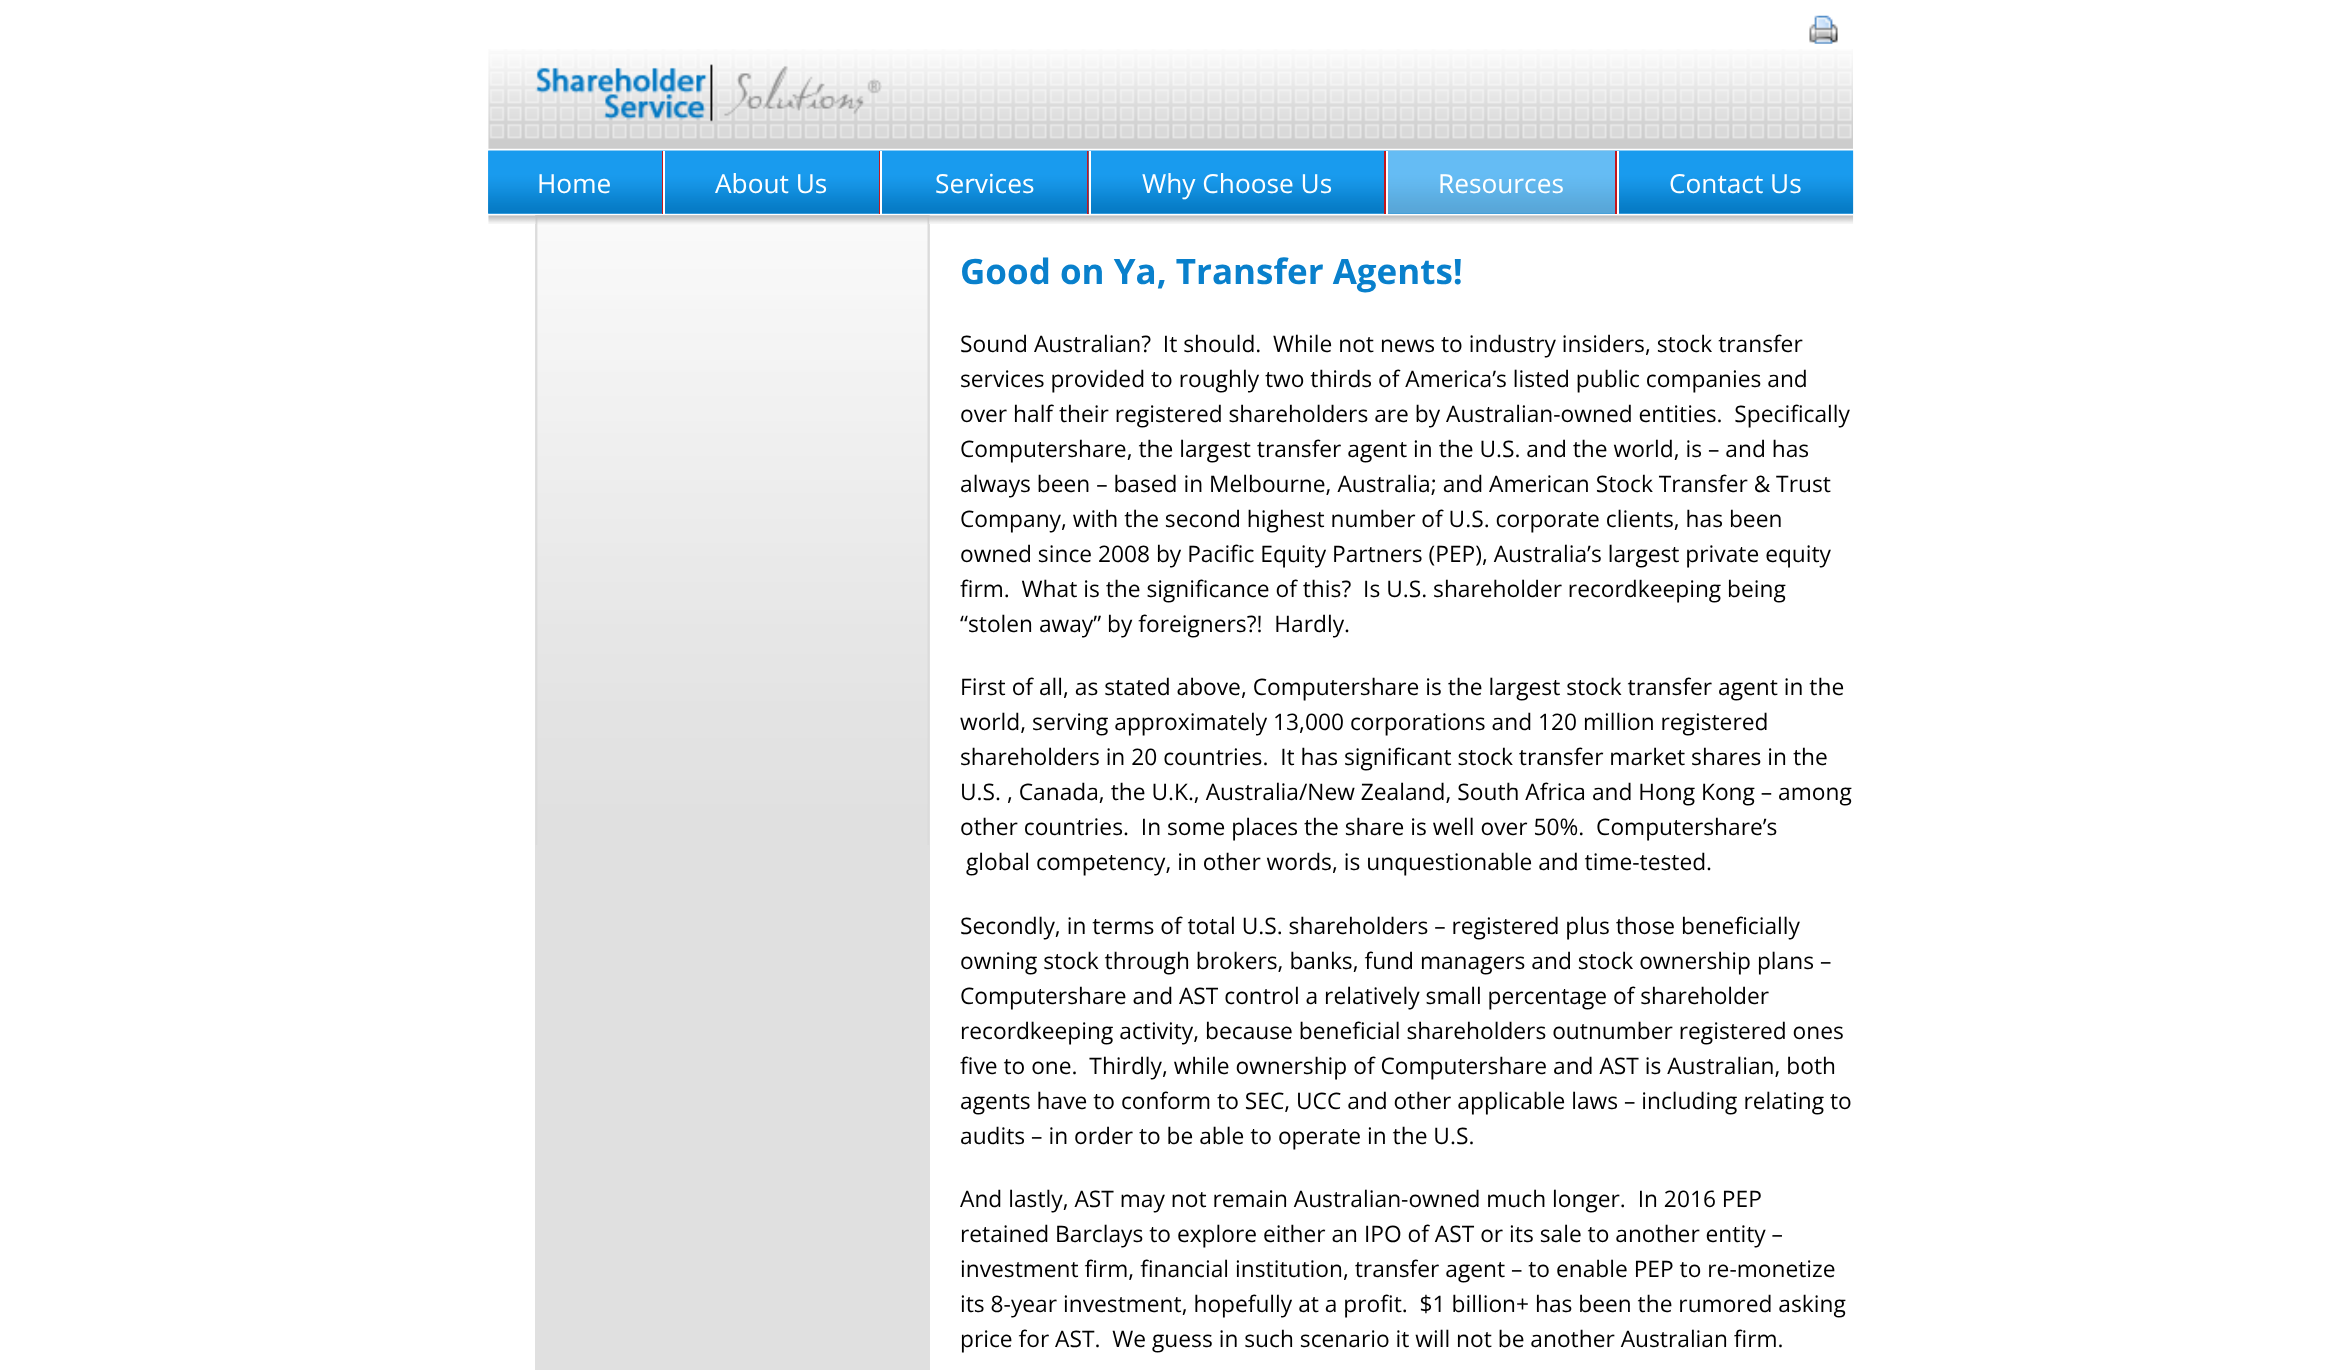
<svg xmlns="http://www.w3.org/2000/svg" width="2339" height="1370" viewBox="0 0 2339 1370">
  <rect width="100%" height="100%" fill="#ffffff"/>
  <image x="488" y="49" width="1365" height="100" href="img1.png"/>
  <image x="1809" y="15" width="29" height="29" href="img2.png"/>
  <image x="535" y="64" width="347" height="58" href="img3.png"/>
  <image x="488" y="150" width="1366" height="65" href="img4.png"/>
  <rect x="488" y="150" width="1365" height="1" fill="#ffffff"/>
  <rect x="488" y="214" width="1365" height="1" fill="#ffffff"/>
  <image x="488" y="150" width="176" height="64" href="img5.png"/>
  <rect x="662" y="151" width="1" height="63" fill="#c4171d"/>
  <text x="537" y="193" font-family="Open Sans" font-size="26.25" fill="#ffffff">Home</text>
  <image x="663" y="150" width="218" height="64" href="img6.png"/>
  <rect x="879" y="151" width="1" height="63" fill="#c4171d"/>
  <rect x="663" y="151" width="2" height="63" fill="#ffffff"/>
  <text x="715" y="193" font-family="Open Sans" font-size="26.25" fill="#ffffff">About Us</text>
  <image x="880" y="150" width="209" height="64" href="img7.png"/>
  <rect x="1087" y="151" width="2" height="63" fill="#c4171d"/>
  <rect x="880" y="151" width="2" height="63" fill="#ffffff"/>
  <text x="935" y="193" font-family="Open Sans" font-size="26.25" fill="#ffffff">Services</text>
  <image x="1088" y="150" width="298" height="64" href="img8.png"/>
  <rect x="1384" y="151" width="2" height="63" fill="#c4171d"/>
  <rect x="1089" y="151" width="2" height="63" fill="#ffffff"/>
  <text x="1142" y="193" font-family="Open Sans" font-size="26.25" fill="#ffffff">Why Choose Us</text>
  <image x="1386" y="150" width="231" height="64" href="img9.png"/>
  <rect x="1615" y="151" width="2" height="63" fill="#c4171d"/>
  <rect x="1386" y="151" width="2" height="63" fill="#ffffff"/>
  <text x="1438" y="193" font-family="Open Sans" font-size="26.25" fill="#ffffff">Resources</text>
  <image x="1617" y="150" width="237" height="64" href="img10.png"/>
  <rect x="1617" y="151" width="2" height="63" fill="#ffffff"/>
  <text x="1669" y="193" font-family="Open Sans" font-size="26.25" fill="#ffffff">Contact Us</text>
  <rect x="535" y="215" width="395" height="1155" fill="#e0e0e0"/>
  <image x="488" y="215" width="1366" height="9" href="img11.png"/>
  <image x="535" y="215" width="395" height="630" href="img12.png"/>
  <text x="960" y="284" font-family="Open Sans" font-size="35" font-weight="bold" fill="#0980cc">Good on Ya, Transfer Agents!</text>
  <text x="960" y="352" font-family="Open Sans" font-size="22.75" fill="#000000" xml:space="preserve">Sound Australian?  It should.  While not news to industry insiders, stock transfer</text>
  <text x="960" y="387" font-family="Open Sans" font-size="22.75" fill="#000000">services provided to roughly two thirds of America’s listed public companies and</text>
  <text x="960" y="422" font-family="Open Sans" font-size="22.75" fill="#000000" xml:space="preserve">over half their registered shareholders are by Australian-owned entities.  Specifically</text>
  <text x="960" y="457" font-family="Open Sans" font-size="22.75" fill="#000000">Computershare, the largest transfer agent in the U.S. and the world, is – and has</text>
  <text x="960" y="492" font-family="Open Sans" font-size="22.75" fill="#000000">always been – based in Melbourne, Australia; and American Stock Transfer &amp; Trust</text>
  <text x="960" y="527" font-family="Open Sans" font-size="22.75" fill="#000000">Company, with the second highest number of U.S. corporate clients, has been</text>
  <text x="960" y="562" font-family="Open Sans" font-size="22.75" fill="#000000">owned since 2008 by Pacific Equity Partners (PEP), Australia’s largest private equity</text>
  <text x="960" y="597" font-family="Open Sans" font-size="22.75" fill="#000000" xml:space="preserve">firm.  What is the significance of this?  Is U.S. shareholder recordkeeping being</text>
  <text x="960" y="632" font-family="Open Sans" font-size="22.75" fill="#000000" xml:space="preserve">“stolen away” by foreigners?!  Hardly.</text>
  <text x="960" y="695" font-family="Open Sans" font-size="22.75" fill="#000000">First of all, as stated above, Computershare is the largest stock transfer agent in the</text>
  <text x="960" y="730" font-family="Open Sans" font-size="22.75" fill="#000000">world, serving approximately 13,000 corporations and 120 million registered</text>
  <text x="960" y="765" font-family="Open Sans" font-size="22.75" fill="#000000" xml:space="preserve">shareholders in 20 countries.  It has significant stock transfer market shares in the</text>
  <text x="960" y="800" font-family="Open Sans" font-size="22.75" fill="#000000">U.S. , Canada, the U.K., Australia/New Zealand, South Africa and Hong Kong – among</text>
  <text x="960" y="835" font-family="Open Sans" font-size="22.75" fill="#000000" xml:space="preserve">other countries.  In some places the share is well over 50%.  Computershare’s</text>
  <text x="966" y="870" font-family="Open Sans" font-size="22.75" fill="#000000">global competency, in other words, is unquestionable and time-tested.</text>
  <text x="960" y="934" font-family="Open Sans" font-size="22.75" fill="#000000">Secondly, in terms of total U.S. shareholders – registered plus those beneficially</text>
  <text x="960" y="969" font-family="Open Sans" font-size="22.75" fill="#000000">owning stock through brokers, banks, fund managers and stock ownership plans –</text>
  <text x="960" y="1004" font-family="Open Sans" font-size="22.75" fill="#000000">Computershare and AST control a relatively small percentage of shareholder</text>
  <text x="960" y="1039" font-family="Open Sans" font-size="22.75" fill="#000000">recordkeeping activity, because beneficial shareholders outnumber registered ones</text>
  <text x="960" y="1074" font-family="Open Sans" font-size="22.75" fill="#000000" xml:space="preserve">five to one.  Thirdly, while ownership of Computershare and AST is Australian, both</text>
  <text x="960" y="1109" font-family="Open Sans" font-size="22.75" fill="#000000">agents have to conform to SEC, UCC and other applicable laws – including relating to</text>
  <text x="960" y="1144" font-family="Open Sans" font-size="22.75" fill="#000000">audits – in order to be able to operate in the U.S.</text>
  <text x="960" y="1207" font-family="Open Sans" font-size="22.75" fill="#000000" xml:space="preserve">And lastly, AST may not remain Australian-owned much longer.  In 2016 PEP</text>
  <text x="960" y="1242" font-family="Open Sans" font-size="22.75" fill="#000000">retained Barclays to explore either an IPO of AST or its sale to another entity –</text>
  <text x="960" y="1277" font-family="Open Sans" font-size="22.75" fill="#000000">investment firm, financial institution, transfer agent – to enable PEP to re-monetize</text>
  <text x="960" y="1312" font-family="Open Sans" font-size="22.75" fill="#000000" xml:space="preserve">its 8-year investment, hopefully at a profit.  $1 billion+ has been the rumored asking</text>
  <text x="960" y="1347" font-family="Open Sans" font-size="22.75" fill="#000000" xml:space="preserve">price for AST.  We guess in such scenario it will not be another Australian firm.</text>
</svg>
